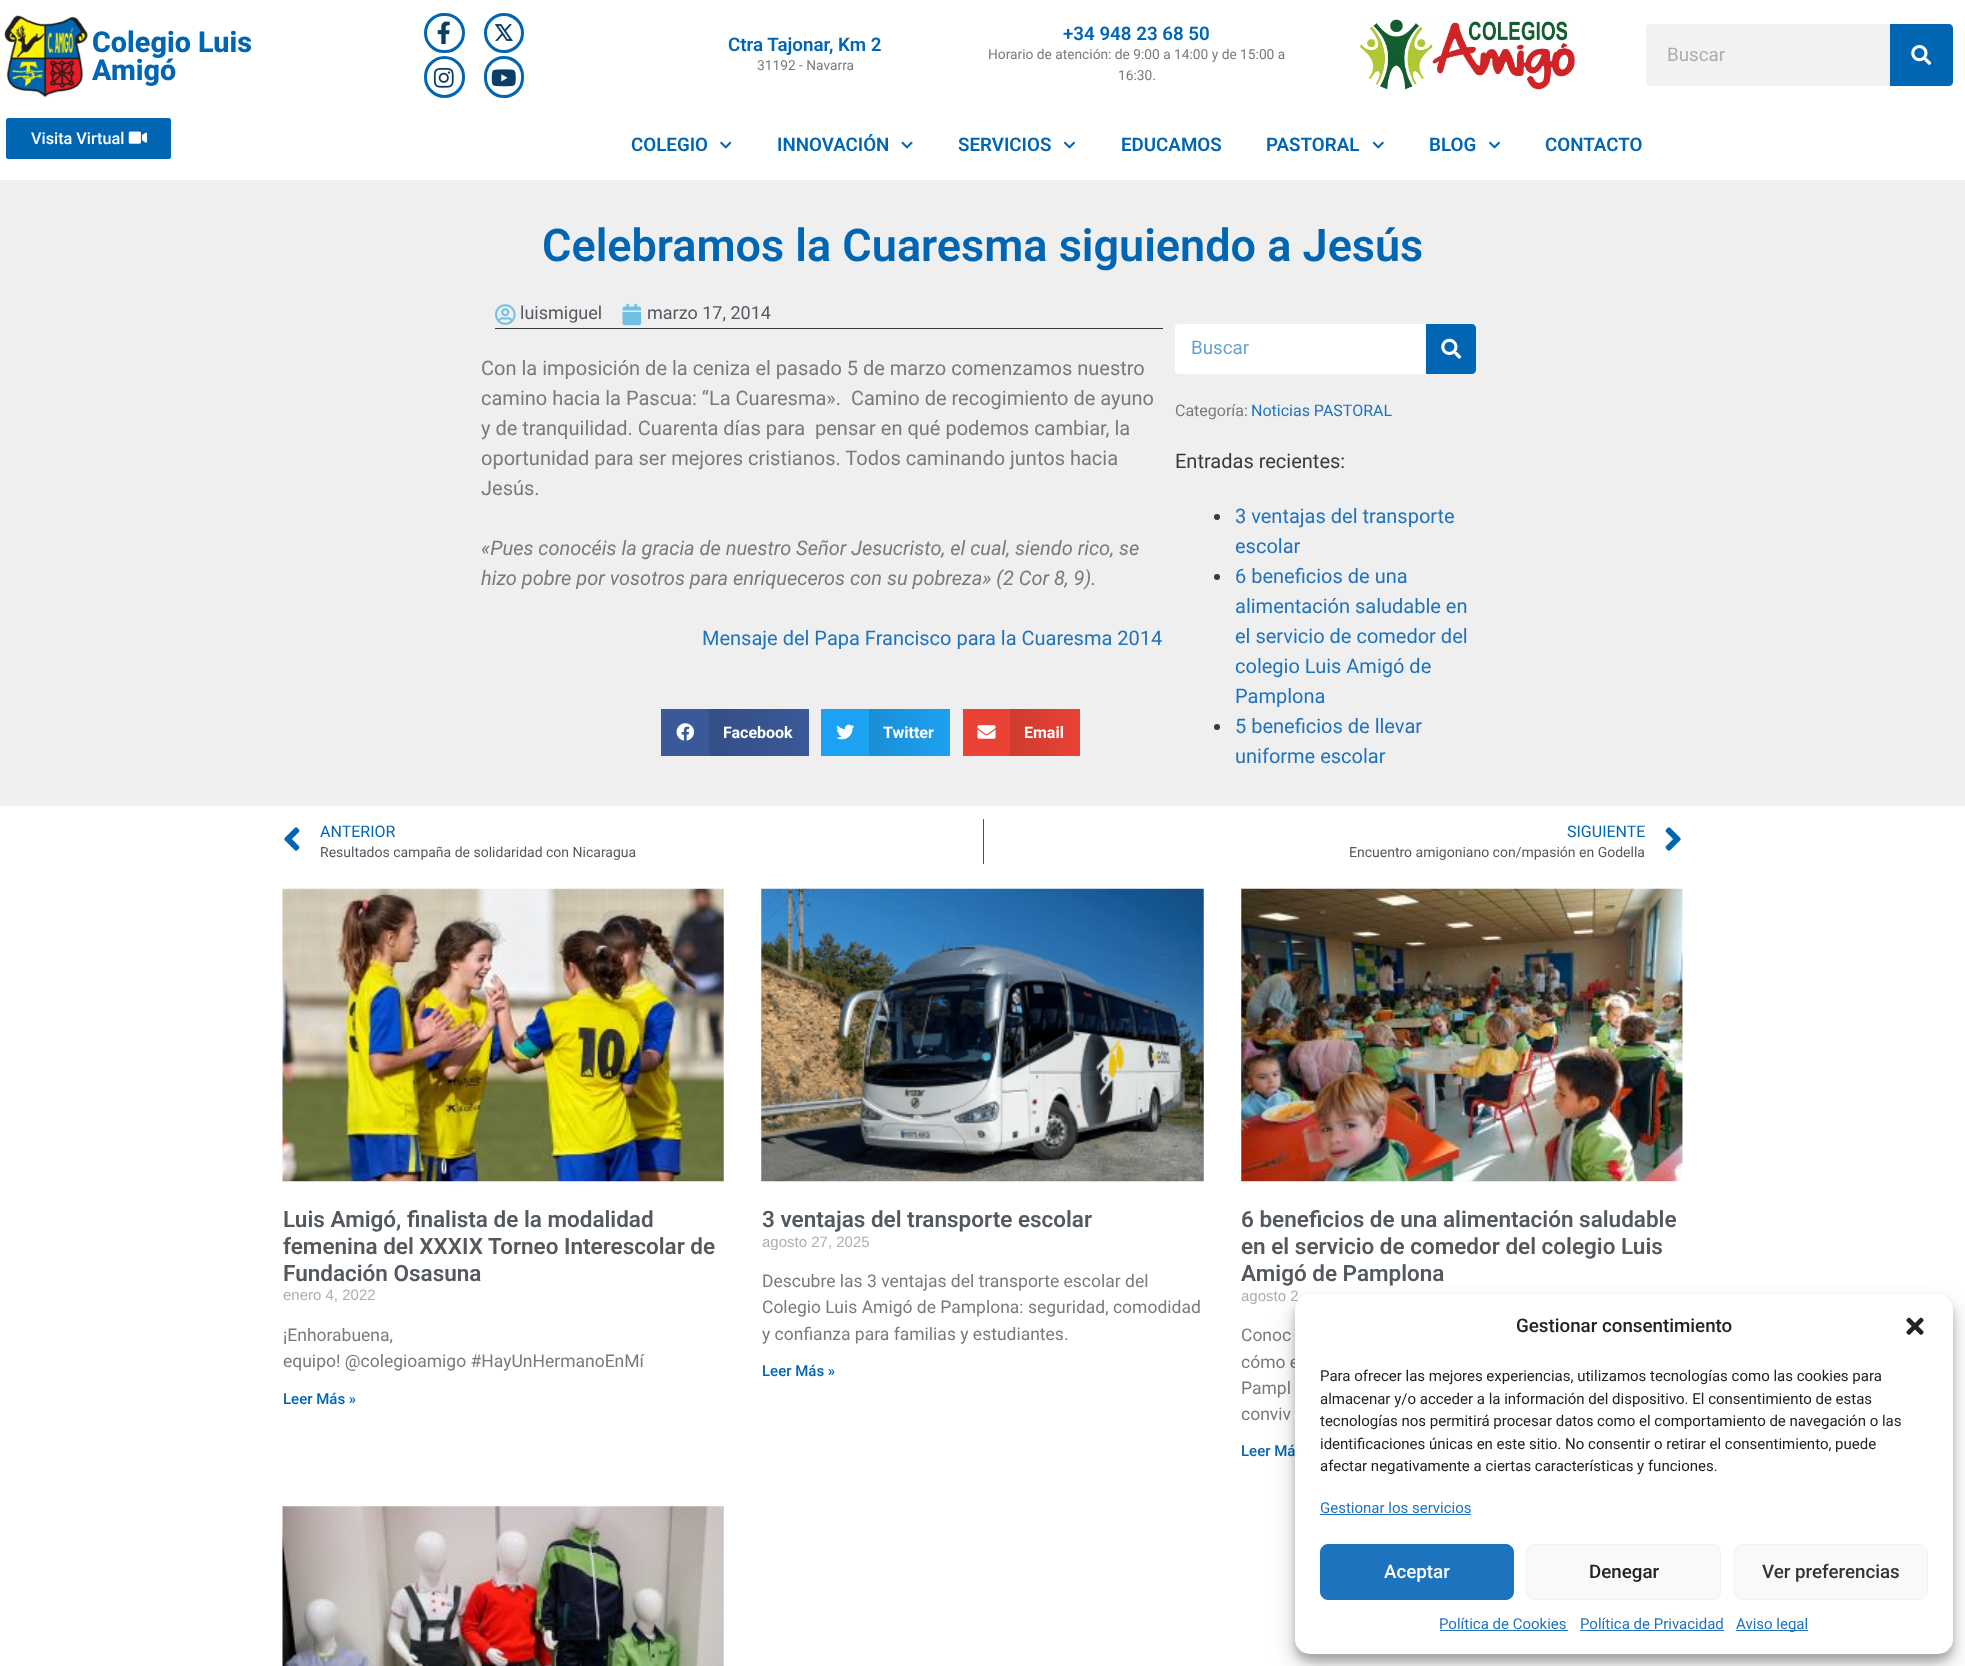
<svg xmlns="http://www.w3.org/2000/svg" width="1965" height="1666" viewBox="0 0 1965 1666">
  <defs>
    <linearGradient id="g1" gradientUnits="userSpaceOnUse" x1="709" y1="733" x2="809" y2="733"><stop offset="0" stop-color="#344e86"/><stop offset="1" stop-color="#3b5998"/></linearGradient>
    <linearGradient id="g2" gradientUnits="userSpaceOnUse" x1="869" y1="733" x2="950" y2="733"><stop offset="0" stop-color="#1a8ed5"/><stop offset="1" stop-color="#1da1f2"/></linearGradient>
    <linearGradient id="g3" gradientUnits="userSpaceOnUse" x1="1010" y1="733" x2="1080" y2="733"><stop offset="0" stop-color="#ce3b2f"/><stop offset="1" stop-color="#ea4335"/></linearGradient>
    <filter id="blur1" x="-50%" y="-200%" width="200%" height="500%"><feGaussianBlur stdDeviation="4"/></filter>
    <filter id="blur2" x="-50%" y="-200%" width="200%" height="500%"><feGaussianBlur stdDeviation="12.5"/></filter>
  </defs>
  <rect width="100%" height="100%" fill="#efefef"/>
  <rect x="0" y="0" width="1965" height="180" fill="#ffffff"/>
  <image x="4" y="15" width="84" height="83" href="img1.png"/>
  <text x="92" y="52" font-family="Roboto" font-size="28.75" font-weight="800" fill="#0065b3">Colegio Luis</text>
  <text x="92" y="80" font-family="Roboto" font-size="28.75" font-weight="800" fill="#0065b3">Amigó</text>
  <rect x="6" y="118" width="165" height="41" rx="2.5" fill="#0065b3"/>
  <text x="31" y="144" font-family="Roboto" font-size="16.25" font-weight="500" fill="#ffffff">Visita Virtual</text>
  <image x="128" y="131" width="20" height="13" href="img2.png"/>
  <rect x="425.5" y="14.5" width="38" height="37" rx="18.5" fill="none" stroke="#0065b3" stroke-width="3"/>
  <image x="437" y="21" width="13" height="24" href="img3.png"/>
  <circle cx="504" cy="33" r="18.5" fill="none" stroke="#0065b3" stroke-width="3"/>
  <image x="494" y="24" width="19" height="17" href="img4.png"/>
  <rect x="425.5" y="57.5" width="38" height="39" rx="19" fill="none" stroke="#0065b3" stroke-width="3"/>
  <image x="433" y="67" width="21" height="21" href="img5.png"/>
  <rect x="485.5" y="57.5" width="37" height="39" rx="18.5" fill="none" stroke="#0065b3" stroke-width="3"/>
  <image x="491" y="69" width="25" height="18" href="img6.png"/>
  <text x="728" y="51" font-family="Roboto" font-size="18.75" font-weight="600" fill="#0065b3">Ctra Tajonar, Km 2</text>
  <text x="757" y="70" font-family="Roboto" font-size="13.75" fill="#7a7a7a">31192 - Navarra</text>
  <text x="1063" y="40" font-family="Roboto" font-size="18.75" font-weight="600" fill="#0065b3">+34 948 23 68 50</text>
  <text x="988" y="59" font-family="Roboto" font-size="13.75" fill="#7a7a7a">Horario de atención: de 9:00 a 14:00 y de 15:00 a</text>
  <text x="1118" y="80" font-family="Roboto" font-size="13.75" fill="#7a7a7a">16:30.</text>
  <image x="1360" y="19" width="215" height="71" href="img7.png"/>
  <rect x="1646" y="24" width="307" height="62" rx="4" fill="#f1f2f3"/>
  <text x="1667" y="61" font-family="Roboto" font-size="18.75" fill="#adadad">Buscar</text>
  <path d="M1890 24H1949C1951 24 1953 26 1953 28V82C1953 84 1951 86 1949 86H1890Z" fill="#0065b3"/>
  <image x="1911" y="45" width="21" height="20" href="img8.png"/>
  <text x="631" y="151" font-family="Roboto" font-size="18.75" font-weight="600" fill="#0065b3">COLEGIO</text>
  <image x="720" y="141" width="12" height="8" href="img9.png"/>
  <text x="777" y="151" font-family="Roboto" font-size="18.75" font-weight="600" fill="#0065b3">INNOVACIÓN</text>
  <image x="901" y="141" width="12" height="8" href="img10.png"/>
  <text x="958" y="151" font-family="Roboto" font-size="18.75" font-weight="600" fill="#0065b3">SERVICIOS</text>
  <image x="1064" y="141" width="11" height="8" href="img11.png"/>
  <text x="1121" y="151" font-family="Roboto" font-size="18.75" font-weight="600" fill="#0065b3">EDUCAMOS</text>
  <text x="1266" y="151" font-family="Roboto" font-size="18.75" font-weight="600" fill="#0065b3">PASTORAL</text>
  <image x="1372" y="141" width="12" height="8" href="img12.png"/>
  <text x="1429" y="151" font-family="Roboto" font-size="18.75" font-weight="600" fill="#0065b3">BLOG</text>
  <image x="1489" y="141" width="11" height="8" href="img11.png"/>
  <text x="1545" y="151" font-family="Roboto" font-size="18.75" font-weight="600" fill="#0065b3">CONTACTO</text>
  <text x="542" y="261" font-family="Roboto" font-size="45" font-weight="600" fill="#0065b3">Celebramos la Cuaresma siguiendo a Jesús</text>
  <rect x="495" y="328" width="668" height="1" fill="#3a3a3a"/>
  <image x="495" y="304" width="21" height="21" href="img13.png"/>
  <text x="520" y="319" font-family="Roboto" font-size="18" fill="#54595f">luismiguel</text>
  <image x="622" y="303" width="20" height="23" href="img14.png"/>
  <text x="647" y="319" font-family="Roboto" font-size="18" fill="#54595f">marzo 17, 2014</text>
  <text x="481" y="375" font-family="Roboto" font-size="20" fill="#7a7a7a">Con la imposición de la ceniza el pasado 5 de marzo comenzamos nuestro</text>
  <text x="481" y="405" font-family="Roboto" font-size="20" fill="#7a7a7a" xml:space="preserve">camino hacia la Pascua: “La Cuaresma».  Camino de recogimiento de ayuno</text>
  <text x="481" y="435" font-family="Roboto" font-size="20" fill="#7a7a7a" xml:space="preserve">y de tranquilidad. Cuarenta días para  pensar en qué podemos cambiar, la</text>
  <text x="481" y="465" font-family="Roboto" font-size="20" fill="#7a7a7a">oportunidad para ser mejores cristianos. Todos caminando juntos hacia</text>
  <text x="481" y="495" font-family="Roboto" font-size="20" fill="#7a7a7a">Jesús.</text>
  <text x="481" y="555" font-family="Roboto" font-size="20" font-style="italic" fill="#7a7a7a">«Pues conocéis la gracia de nuestro Señor Jesucristo, el cual, siendo rico, se</text>
  <text x="481" y="585" font-family="Roboto" font-size="20" font-style="italic" fill="#7a7a7a">hizo pobre por vosotros para enriqueceros con su pobreza» (2 Cor 8, 9).</text>
  <text x="702" y="645" font-family="Roboto" font-size="20" fill="#1e73be">Mensaje del Papa Francisco para la Cuaresma 2014</text>
  <rect x="661" y="709" width="48" height="47" fill="#3b5998"/>
  <image x="676" y="723" width="18" height="18" href="img15.png"/>
  <rect x="709" y="709" width="100" height="47" fill="url(#g1)"/>
  <text x="723" y="738" font-family="Roboto" font-size="16" font-weight="bold" fill="#ffffff">Facebook</text>
  <rect x="821" y="709" width="48" height="47" fill="#1da1f2"/>
  <image x="836" y="724" width="19" height="16" href="img16.png"/>
  <rect x="869" y="709" width="81" height="47" fill="url(#g2)"/>
  <text x="883" y="738" font-family="Roboto" font-size="16" font-weight="bold" fill="#ffffff">Twitter</text>
  <rect x="963" y="709" width="47" height="47" fill="#ea4335"/>
  <image x="977" y="725" width="19" height="14" href="img17.png"/>
  <rect x="1010" y="709" width="70" height="47" fill="url(#g3)"/>
  <text x="1024" y="738" font-family="Roboto" font-size="16" font-weight="bold" fill="#ffffff">Email</text>
  <rect x="1175" y="324" width="301" height="50" rx="4" fill="#ffffff"/>
  <text x="1191" y="354" font-family="Roboto" font-size="18.75" fill="#66a3d1">Buscar</text>
  <path d="M1426 324H1472C1474 324 1476 326 1476 328V370C1476 372 1474 374 1472 374H1426Z" fill="#0065b3"/>
  <image x="1441" y="338" width="21" height="21" href="img18.png"/>
  <text x="1175" y="416" font-family="Roboto" font-size="16" fill="#7a7a7a">Categoría:</text>
  <text x="1251" y="416" font-family="Roboto" font-size="16" fill="#1e73be">Noticias PASTORAL</text>
  <text x="1175" y="468" font-family="Roboto" font-size="20" fill="#3a3a3a">Entradas recientes:</text>
  <circle cx="1217" cy="517" r="3" fill="#3a3a3a"/>
  <text x="1235" y="523" font-family="Roboto" font-size="20" fill="#1e73be">3 ventajas del transporte</text>
  <text x="1235" y="553" font-family="Roboto" font-size="20" fill="#1e73be">escolar</text>
  <circle cx="1217" cy="577" r="3" fill="#3a3a3a"/>
  <text x="1235" y="583" font-family="Roboto" font-size="20" fill="#1e73be">6 beneficios de una</text>
  <text x="1235" y="613" font-family="Roboto" font-size="20" fill="#1e73be">alimentación saludable en</text>
  <text x="1235" y="643" font-family="Roboto" font-size="20" fill="#1e73be">el servicio de comedor del</text>
  <text x="1235" y="673" font-family="Roboto" font-size="20" fill="#1e73be">colegio Luis Amigó de</text>
  <text x="1235" y="703" font-family="Roboto" font-size="20" fill="#1e73be">Pamplona</text>
  <circle cx="1217" cy="727" r="3" fill="#3a3a3a"/>
  <text x="1235" y="733" font-family="Roboto" font-size="20" fill="#1e73be">5 beneficios de llevar</text>
  <text x="1235" y="763" font-family="Roboto" font-size="20" fill="#1e73be">uniforme escolar</text>
  <rect x="0" y="806" width="1965" height="860" fill="#ffffff"/>
  <image x="284" y="827" width="16" height="24" href="img19.png"/>
  <text x="320" y="837" font-family="Roboto" font-size="16" fill="#0065b3">ANTERIOR</text>
  <text x="320" y="857" font-family="Roboto" font-size="14" fill="#54595f">Resultados campaña de solidaridad con Nicaragua</text>
  <rect x="983" y="819" width="1" height="45" fill="#0065b3"/>
  <text x="1567" y="837" font-family="Roboto" font-size="16" fill="#0065b3">SIGUIENTE</text>
  <text x="1349" y="857" font-family="Roboto" font-size="14" fill="#54595f">Encuentro amigoniano con/mpasión en Godella</text>
  <image x="1665" y="827" width="16" height="24" href="img20.png"/>
  <image x="282" y="888" width="442" height="294" href="img21.png"/>
  <text x="283" y="1227" font-family="Roboto" font-size="22.5" font-weight="600" fill="#54595f">Luis Amigó, finalista de la modalidad</text>
  <text x="283" y="1254" font-family="Roboto" font-size="22.5" font-weight="600" fill="#54595f">femenina del XXXIX Torneo Interescolar de</text>
  <text x="283" y="1281" font-family="Roboto" font-size="22.5" font-weight="600" fill="#54595f">Fundación Osasuna</text>
  <text x="283" y="1300" font-family="Liberation Sans" font-size="15" fill="#adadad">enero 4, 2022</text>
  <text x="283" y="1341" font-family="Roboto" font-size="17.5" fill="#7a7a7a">¡Enhorabuena,</text>
  <text x="283" y="1367" font-family="Roboto" font-size="17.5" fill="#7a7a7a">equipo! @colegioamigo #HayUnHermanoEnMí</text>
  <text x="283" y="1404" font-family="Roboto" font-size="15" font-weight="500" fill="#0065b3">Leer Más »</text>
  <image x="761" y="888" width="443" height="294" href="img22.png"/>
  <text x="762" y="1227" font-family="Roboto" font-size="22.5" font-weight="600" fill="#54595f">3 ventajas del transporte escolar</text>
  <text x="762" y="1247" font-family="Liberation Sans" font-size="15" fill="#adadad">agosto 27, 2025</text>
  <text x="762" y="1287" font-family="Roboto" font-size="17.5" fill="#7a7a7a">Descubre las 3 ventajas del transporte escolar del</text>
  <text x="762" y="1313" font-family="Roboto" font-size="17.5" fill="#7a7a7a">Colegio Luis Amigó de Pamplona: seguridad, comodidad</text>
  <text x="762" y="1340" font-family="Roboto" font-size="17.5" fill="#7a7a7a">y confianza para familias y estudiantes.</text>
  <text x="762" y="1376" font-family="Roboto" font-size="15" font-weight="500" fill="#0065b3">Leer Más »</text>
  <image x="1241" y="888" width="442" height="294" href="img23.png"/>
  <text x="1241" y="1227" font-family="Roboto" font-size="22.5" font-weight="600" fill="#54595f">6 beneficios de una alimentación saludable</text>
  <text x="1241" y="1254" font-family="Roboto" font-size="22.5" font-weight="600" fill="#54595f">en el servicio de comedor del colegio Luis</text>
  <text x="1241" y="1281" font-family="Roboto" font-size="22.5" font-weight="600" fill="#54595f">Amigó de Pamplona</text>
  <text x="1241" y="1301" font-family="Liberation Sans" font-size="15" fill="#adadad">agosto 2</text>
  <text x="1241" y="1341" font-family="Roboto" font-size="17.5" fill="#7a7a7a">Conoc</text>
  <text x="1241" y="1368" font-family="Roboto" font-size="17.5" fill="#7a7a7a">cómo e</text>
  <text x="1241" y="1394" font-family="Roboto" font-size="17.5" fill="#7a7a7a">Pampl</text>
  <text x="1241" y="1420" font-family="Roboto" font-size="17.5" fill="#7a7a7a">conviv</text>
  <text x="1241" y="1456" font-family="Roboto" font-size="15" font-weight="500" fill="#0065b3">Leer Má</text>
  <image x="282" y="1506" width="442" height="160" href="img24.png"/>
  <rect x="1295" y="1301" width="658" height="360" rx="15" fill="#000000" fill-opacity="0.23" filter="url(#blur1)"/>
  <rect x="1295" y="1306" width="658" height="360" rx="15" fill="#000000" fill-opacity="0.19" filter="url(#blur2)"/>
  <rect x="1295" y="1294" width="658" height="360" rx="15" fill="#ffffff"/>
  <text x="1516" y="1332" font-family="Roboto" font-size="18.75" font-weight="500" fill="#222222">Gestionar consentimiento</text>
  <image x="1906" y="1317" width="18" height="18" href="img25.png"/>
  <text x="1320" y="1381" font-family="Roboto" font-size="15" fill="#222222">Para ofrecer las mejores experiencias, utilizamos tecnologías como las cookies para</text>
  <text x="1320" y="1404" font-family="Roboto" font-size="15" fill="#222222">almacenar y/o acceder a la información del dispositivo. El consentimiento de estas</text>
  <text x="1320" y="1426" font-family="Roboto" font-size="15" fill="#222222">tecnologías nos permitirá procesar datos como el comportamiento de navegación o las</text>
  <text x="1320" y="1449" font-family="Roboto" font-size="15" fill="#222222">identificaciones únicas en este sitio. No consentir o retirar el consentimiento, puede</text>
  <text x="1320" y="1471" font-family="Roboto" font-size="15" fill="#222222">afectar negativamente a ciertas características y funciones.</text>
  <text x="1320" y="1513" font-family="Roboto" font-size="15" fill="#1e73be">Gestionar los servicios</text>
  <rect x="1320" y="1514" width="151" height="1" fill="#1e73be"/>
  <rect x="1320.5" y="1544.5" width="193" height="55" rx="7.5" fill="#1e73be" stroke="#1e73be"/>
  <text x="1384" y="1578" font-family="Roboto" font-size="18.75" font-weight="500" fill="#ffffff">Aceptar</text>
  <rect x="1526.5" y="1544.5" width="194" height="55" rx="7.5" fill="#f9f9f9" stroke="#f2f2f2"/>
  <text x="1589" y="1578" font-family="Roboto" font-size="18.75" font-weight="500" fill="#222222">Denegar</text>
  <rect x="1734.5" y="1544.5" width="193" height="55" rx="7.5" fill="#f9f9f9" stroke="#f2f2f2"/>
  <text x="1762" y="1578" font-family="Roboto" font-size="18.75" font-weight="500" fill="#333333">Ver preferencias</text>
  <text x="1439" y="1629" font-family="Roboto" font-size="15" fill="#1e73be">Política de Cookies</text>
  <rect x="1440" y="1630" width="128" height="1" fill="#1e73be"/>
  <text x="1580" y="1629" font-family="Roboto" font-size="15" fill="#1e73be">Política de Privacidad</text>
  <rect x="1580" y="1630" width="144" height="1" fill="#1e73be"/>
  <rect x="1736" y="1630" width="72" height="1" fill="#1e73be"/>
  <text x="1736" y="1629" font-family="Roboto" font-size="15" fill="#1e73be">Aviso legal</text>
</svg>
